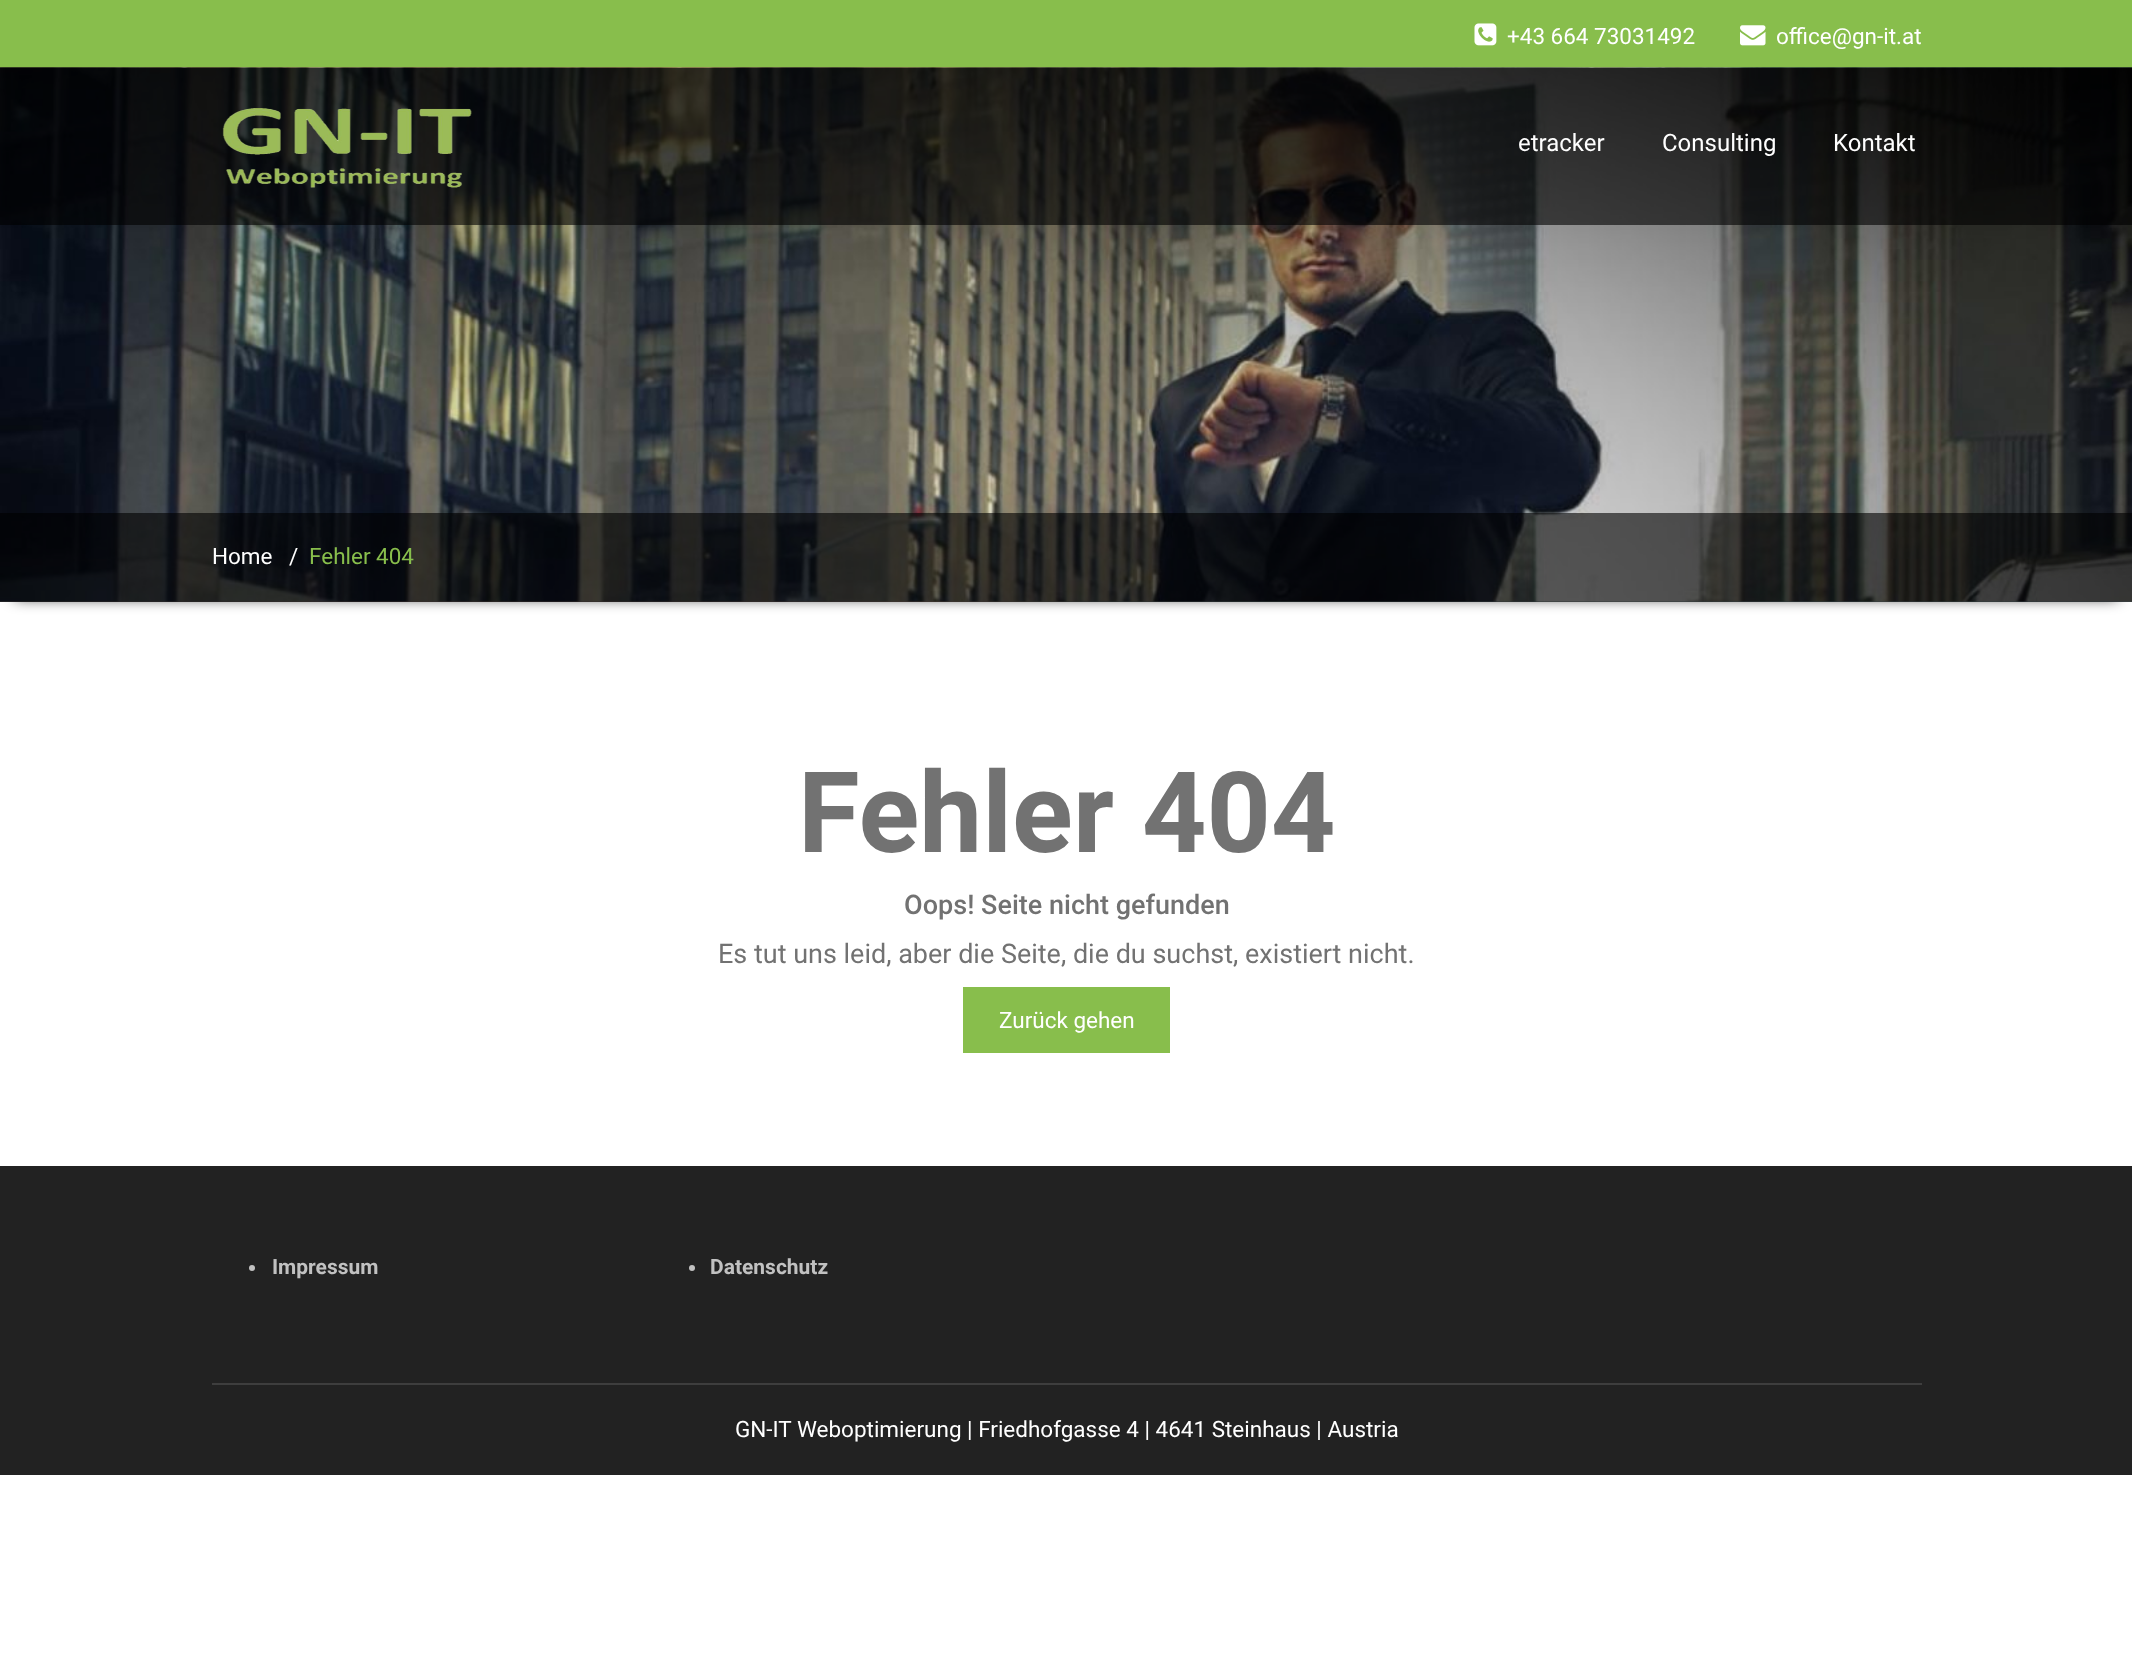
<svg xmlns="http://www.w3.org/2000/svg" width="2132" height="1675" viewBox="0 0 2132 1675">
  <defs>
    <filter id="blur1" x="-50%" y="-200%" width="200%" height="500%"><feGaussianBlur stdDeviation="7.5"/></filter>
  </defs>
  <rect width="100%" height="100%" fill="#ffffff"/>
  <rect x="0" y="0" width="2132" height="68" fill="#88be4c"/>
  <image x="1474" y="23" width="23" height="23" href="img1.png"/>
  <text x="1507" y="44" font-family="Roboto" font-size="22.5" fill="#ffffff">+43 664 73031492</text>
  <image x="1740" y="25" width="26" height="21" href="img2.png"/>
  <text x="1776" y="44" font-family="Roboto" font-size="22.5" fill="#ffffff">office@gn-it.at</text>
  <rect x="15" y="93" width="2103" height="504" fill="#000000" filter="url(#blur1)"/>
  <image x="0" y="67" width="2132" height="535" href="img4.png"/>
  <image x="0" y="67" width="2132" height="535" href="img5.png"/>
  <rect x="0" y="68" width="2132" height="157" fill="#000000" fill-opacity="0.6"/>
  <image x="222" y="108" width="250" height="80" href="img3.png"/>
  <text x="1518" y="151" font-family="Roboto" font-size="24" fill="#ffffff">etracker</text>
  <text x="1662" y="151" font-family="Roboto" font-size="24" fill="#ffffff">Consulting</text>
  <text x="1833" y="151" font-family="Roboto" font-size="24" fill="#ffffff">Kontakt</text>
  <rect x="0" y="513" width="2132" height="89" fill="#000000" fill-opacity="0.6"/>
  <text x="212" y="564" font-family="Roboto" font-size="22.5" fill="#ffffff">Home</text>
  <text x="289" y="564" font-family="Roboto" font-size="22.5" fill="#ffffff">/</text>
  <text x="309" y="564" font-family="Roboto" font-size="22.5" fill="#88be4c">Fehler 404</text>
  <text x="798" y="852" font-family="Roboto" font-size="112.5" font-weight="bold" fill="#727272">Fehler 404</text>
  <text x="904" y="914" font-family="Roboto" font-size="27" font-weight="500" fill="#727272">Oops! Seite nicht gefunden</text>
  <text x="718" y="963" font-family="Roboto" font-size="27" fill="#727272">Es tut uns leid, aber die Seite, die du suchst, existiert nicht.</text>
  <rect x="963" y="987" width="207" height="66" fill="#88be4c"/>
  <text x="999" y="1028" font-family="Roboto" font-size="22.5" fill="#ffffff">Zurück gehen</text>
  <rect x="0" y="1166" width="2132" height="309" fill="#222222"/>
  <circle cx="252" cy="1268" r="3" fill="#c1c1c1"/>
  <text x="272" y="1274" font-family="Roboto" font-size="21" font-weight="bold" fill="#c1c1c1">Impressum</text>
  <circle cx="692" cy="1268" r="3" fill="#c1c1c1"/>
  <text x="710" y="1274" font-family="Roboto" font-size="21" font-weight="bold" fill="#c1c1c1">Datenschutz</text>
  <rect x="212" y="1383" width="1710" height="2" fill="#3e3e3e"/>
  <text x="735" y="1437" font-family="Roboto" font-size="22.5" fill="#ffffff">GN-IT Weboptimierung | Friedhofgasse 4 | 4641 Steinhaus | Austria</text>
</svg>
